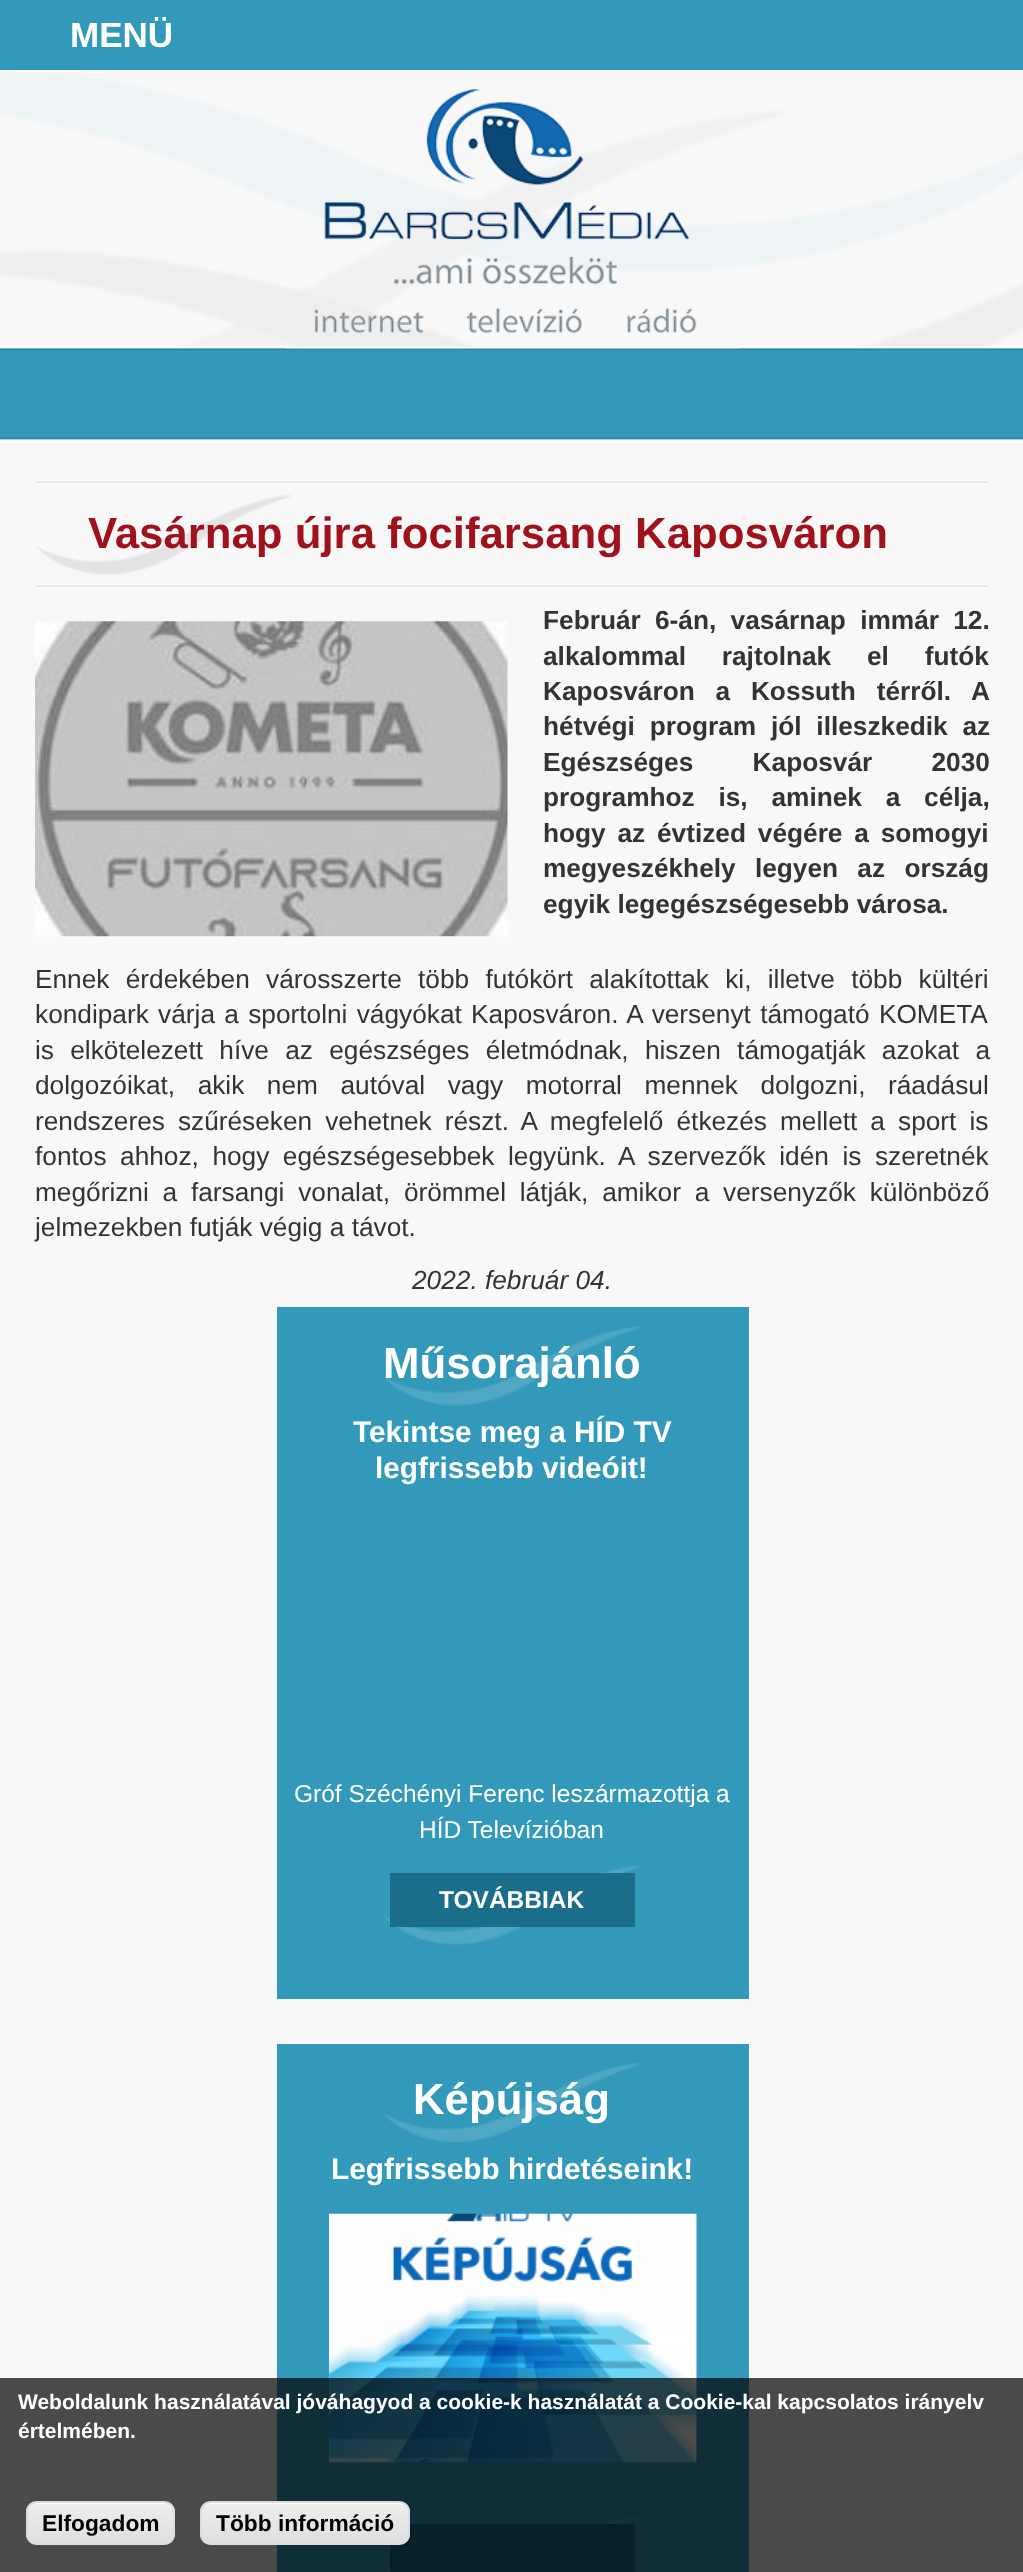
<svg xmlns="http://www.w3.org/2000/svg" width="1023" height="2572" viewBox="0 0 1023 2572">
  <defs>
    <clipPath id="clip1"><rect x="26" y="2501" width="149" height="44" rx="11"/></clipPath>
    <linearGradient id="g1" gradientUnits="userSpaceOnUse" x1="101" y1="2503" x2="101" y2="2543"><stop offset="0.05" stop-color="#ededed"/><stop offset="1" stop-color="#dfdfdf"/></linearGradient>
    <clipPath id="clip2"><rect x="200" y="2501" width="210" height="44" rx="11"/></clipPath>
    <linearGradient id="g2" gradientUnits="userSpaceOnUse" x1="305" y1="2503" x2="305" y2="2543"><stop offset="0.05" stop-color="#ededed"/><stop offset="1" stop-color="#dfdfdf"/></linearGradient>
  </defs>
  <rect width="100%" height="100%" fill="#f8f8f8"/>
  <image x="0" y="72" width="1023" height="369" href="img1.png"/>
  <rect x="0" y="0" width="1023" height="70" fill="#3299bb"/>
  <rect x="0" y="70" width="1023" height="2" fill="#ffffff"/>
  <text x="70" y="47" font-family="Liberation Sans" font-size="35" font-weight="bold" fill="#ffffff">MENÜ</text>
  <image x="285" y="89" width="456" height="260" href="img2.png"/>
  <image x="36" y="495" width="256" height="80" href="img3.png"/>
  <rect x="35" y="481" width="954" height="2" fill="#e9e9e9"/>
  <rect x="35" y="585" width="954" height="2" fill="#e9e9e9"/>
  <text x="88" y="548" font-family="Liberation Sans" font-size="43.75" font-weight="bold" fill="#9f111b">Vasárnap újra focifarsang Kaposváron</text>
  <image x="35" y="621" width="473" height="316" href="img4.png"/>
  <text x="543" y="629" word-spacing="7" font-family="Liberation Sans" font-size="26.25" font-weight="bold" fill="#333333">Február 6-án, vasárnap immár 12.</text>
  <text x="543" y="665" word-spacing="28.5" font-family="Liberation Sans" font-size="26.25" font-weight="bold" fill="#333333">alkalommal rajtolnak el futók</text>
  <text x="543" y="700" word-spacing="13.5" font-family="Liberation Sans" font-size="26.25" font-weight="bold" fill="#333333">Kaposváron a Kossuth térről. A</text>
  <text x="543" y="735" word-spacing="7.5" font-family="Liberation Sans" font-size="26.25" font-weight="bold" fill="#333333">hétvégi program jól illeszkedik az</text>
  <text x="543" y="771" word-spacing="52" font-family="Liberation Sans" font-size="26.25" font-weight="bold" fill="#333333">Egészséges Kaposvár 2030</text>
  <text x="543" y="806" word-spacing="16.5" font-family="Liberation Sans" font-size="26.25" font-weight="bold" fill="#333333">programhoz is, aminek a célja,</text>
  <text x="543" y="842" word-spacing="4.5" font-family="Liberation Sans" font-size="26.25" font-weight="bold" fill="#333333">hogy az évtized végére a somogyi</text>
  <text x="543" y="877" word-spacing="12" font-family="Liberation Sans" font-size="26.25" font-weight="bold" fill="#333333">megyeszékhely legyen az ország</text>
  <text x="543" y="913" font-family="Liberation Sans" font-size="26.25" font-weight="bold" fill="#333333">egyik legegészségesebb városa.</text>
  <text x="35" y="988" word-spacing="9" font-family="Liberation Sans" font-size="26.25" fill="#333333">Ennek érdekében városszerte több futókört alakítottak ki, illetve több kültéri</text>
  <text x="35" y="1023" word-spacing="2" font-family="Liberation Sans" font-size="26.25" fill="#333333">kondipark várja a sportolni vágyókat Kaposváron. A versenyt támogató KOMETA</text>
  <text x="35" y="1059" word-spacing="9" font-family="Liberation Sans" font-size="26.25" fill="#333333">is elkötelezett híve az egészséges életmódnak, hiszen támogatják azokat a</text>
  <text x="35" y="1094" word-spacing="15.25" font-family="Liberation Sans" font-size="26.25" fill="#333333">dolgozóikat, akik nem autóval vagy motorral mennek dolgozni, ráadásul</text>
  <text x="35" y="1130" word-spacing="5.75" font-family="Liberation Sans" font-size="26.25" fill="#333333">rendszeres szűréseken vehetnek részt. A megfelelő étkezés mellett a sport is</text>
  <text x="35" y="1165" word-spacing="6.25" font-family="Liberation Sans" font-size="26.25" fill="#333333">fontos ahhoz, hogy egészségesebbek legyünk. A szervezők idén is szeretnék</text>
  <text x="35" y="1201" word-spacing="6.5" font-family="Liberation Sans" font-size="26.25" fill="#333333">megőrizni a farsangi vonalat, örömmel látják, amikor a versenyzők különböző</text>
  <text x="35" y="1236" font-family="Liberation Sans" font-size="26.25" fill="#333333">jelmezekben futják végig a távot.</text>
  <text x="412" y="1289" font-family="Liberation Sans" font-size="26.25" font-style="italic" fill="#333333">2022. február 04.</text>
  <rect x="277" y="1307" width="472" height="692" fill="#3299bb"/>
  <image x="383" y="1326" width="258" height="80" href="img5.png"/>
  <text x="383" y="1378" font-family="Liberation Sans" font-size="43.75" font-weight="bold" fill="#ffffff">Műsorajánló</text>
  <text x="353" y="1442" font-family="Liberation Sans" font-size="29.75" font-weight="bold" fill="#ffffff">Tekintse meg a HÍD TV</text>
  <text x="375" y="1478" font-family="Liberation Sans" font-size="29.75" font-weight="bold" fill="#ffffff">legfrissebb videóit!</text>
  <text x="294" y="1802" font-family="Liberation Sans" font-size="24.5" fill="#ffffff">Gróf Széchényi Ferenc leszármazottja a</text>
  <text x="419" y="1838" font-family="Liberation Sans" font-size="24.5" fill="#ffffff">HÍD Televízióban</text>
  <image x="383" y="1865" width="258" height="80" href="img6.png"/>
  <rect x="390" y="1873" width="245" height="54" fill="#1b6e8a"/>
  <text x="439" y="1908" font-family="Liberation Sans" font-size="24.5" font-weight="bold" fill="#ffffff">TOVÁBBIAK</text>
  <rect x="277" y="2044" width="472" height="528" fill="#3299bb"/>
  <image x="383" y="2063" width="258" height="80" href="img7.png"/>
  <text x="413" y="2114" font-family="Liberation Sans" font-size="43.75" font-weight="bold" fill="#ffffff">Képújság</text>
  <text x="331" y="2179" font-family="Liberation Sans" font-size="29.75" font-weight="bold" fill="#ffffff">Legfrissebb hirdetéseink!</text>
  <image x="329" y="2213" width="368" height="250" href="img8.png"/>
  <image x="383" y="2516" width="258" height="56" href="img9.png"/>
  <rect x="390" y="2524" width="245" height="48" fill="#1b6e8a"/>
  <rect x="0" y="2378" width="1023" height="194" fill="#000000" fill-opacity="0.7"/>
  <text x="18" y="2409" font-family="Liberation Sans" font-size="21" font-weight="bold" fill="#ffffff">Weboldalunk használatával jóváhagyod a cookie-k használatát a Cookie-kal kapcsolatos irányelv</text>
  <text x="18" y="2438" font-family="Liberation Sans" font-size="21" font-weight="bold" fill="#ffffff">értelmében.</text>
  <g clip-path="url(#clip1)">
    <rect x="26" y="2503" width="149" height="40" fill="url(#g1)"/>
  </g>
  <path d="M37 2504H164C169 2504 173 2508 173 2513C173 2498 151 2503 143 2503H58C50 2503 28 2498 28 2513C28 2508 32 2504 37 2504Z" fill="#ffffff"/>
  <rect x="27" y="2502" width="147" height="42" rx="10" fill="none" stroke="#dcdcdc" stroke-width="2"/>
  <text x="42" y="2531" font-family="Liberation Sans" font-size="22.75" font-weight="bold" fill="#000000">Elfogadom</text>
  <g clip-path="url(#clip2)">
    <rect x="200" y="2503" width="210" height="40" fill="url(#g2)"/>
  </g>
  <path d="M210 2504H399C404 2504 408 2508 408 2513V2512C408 2507 404 2503 399 2503H210C205 2503 201 2507 201 2512V2513C201 2508 205 2504 210 2504Z" fill="#ffffff"/>
  <rect x="201" y="2502" width="208" height="42" rx="10" fill="none" stroke="#dcdcdc" stroke-width="2"/>
  <text x="216" y="2531" font-family="Liberation Sans" font-size="22.75" font-weight="bold" fill="#000000">Több információ</text>
</svg>
